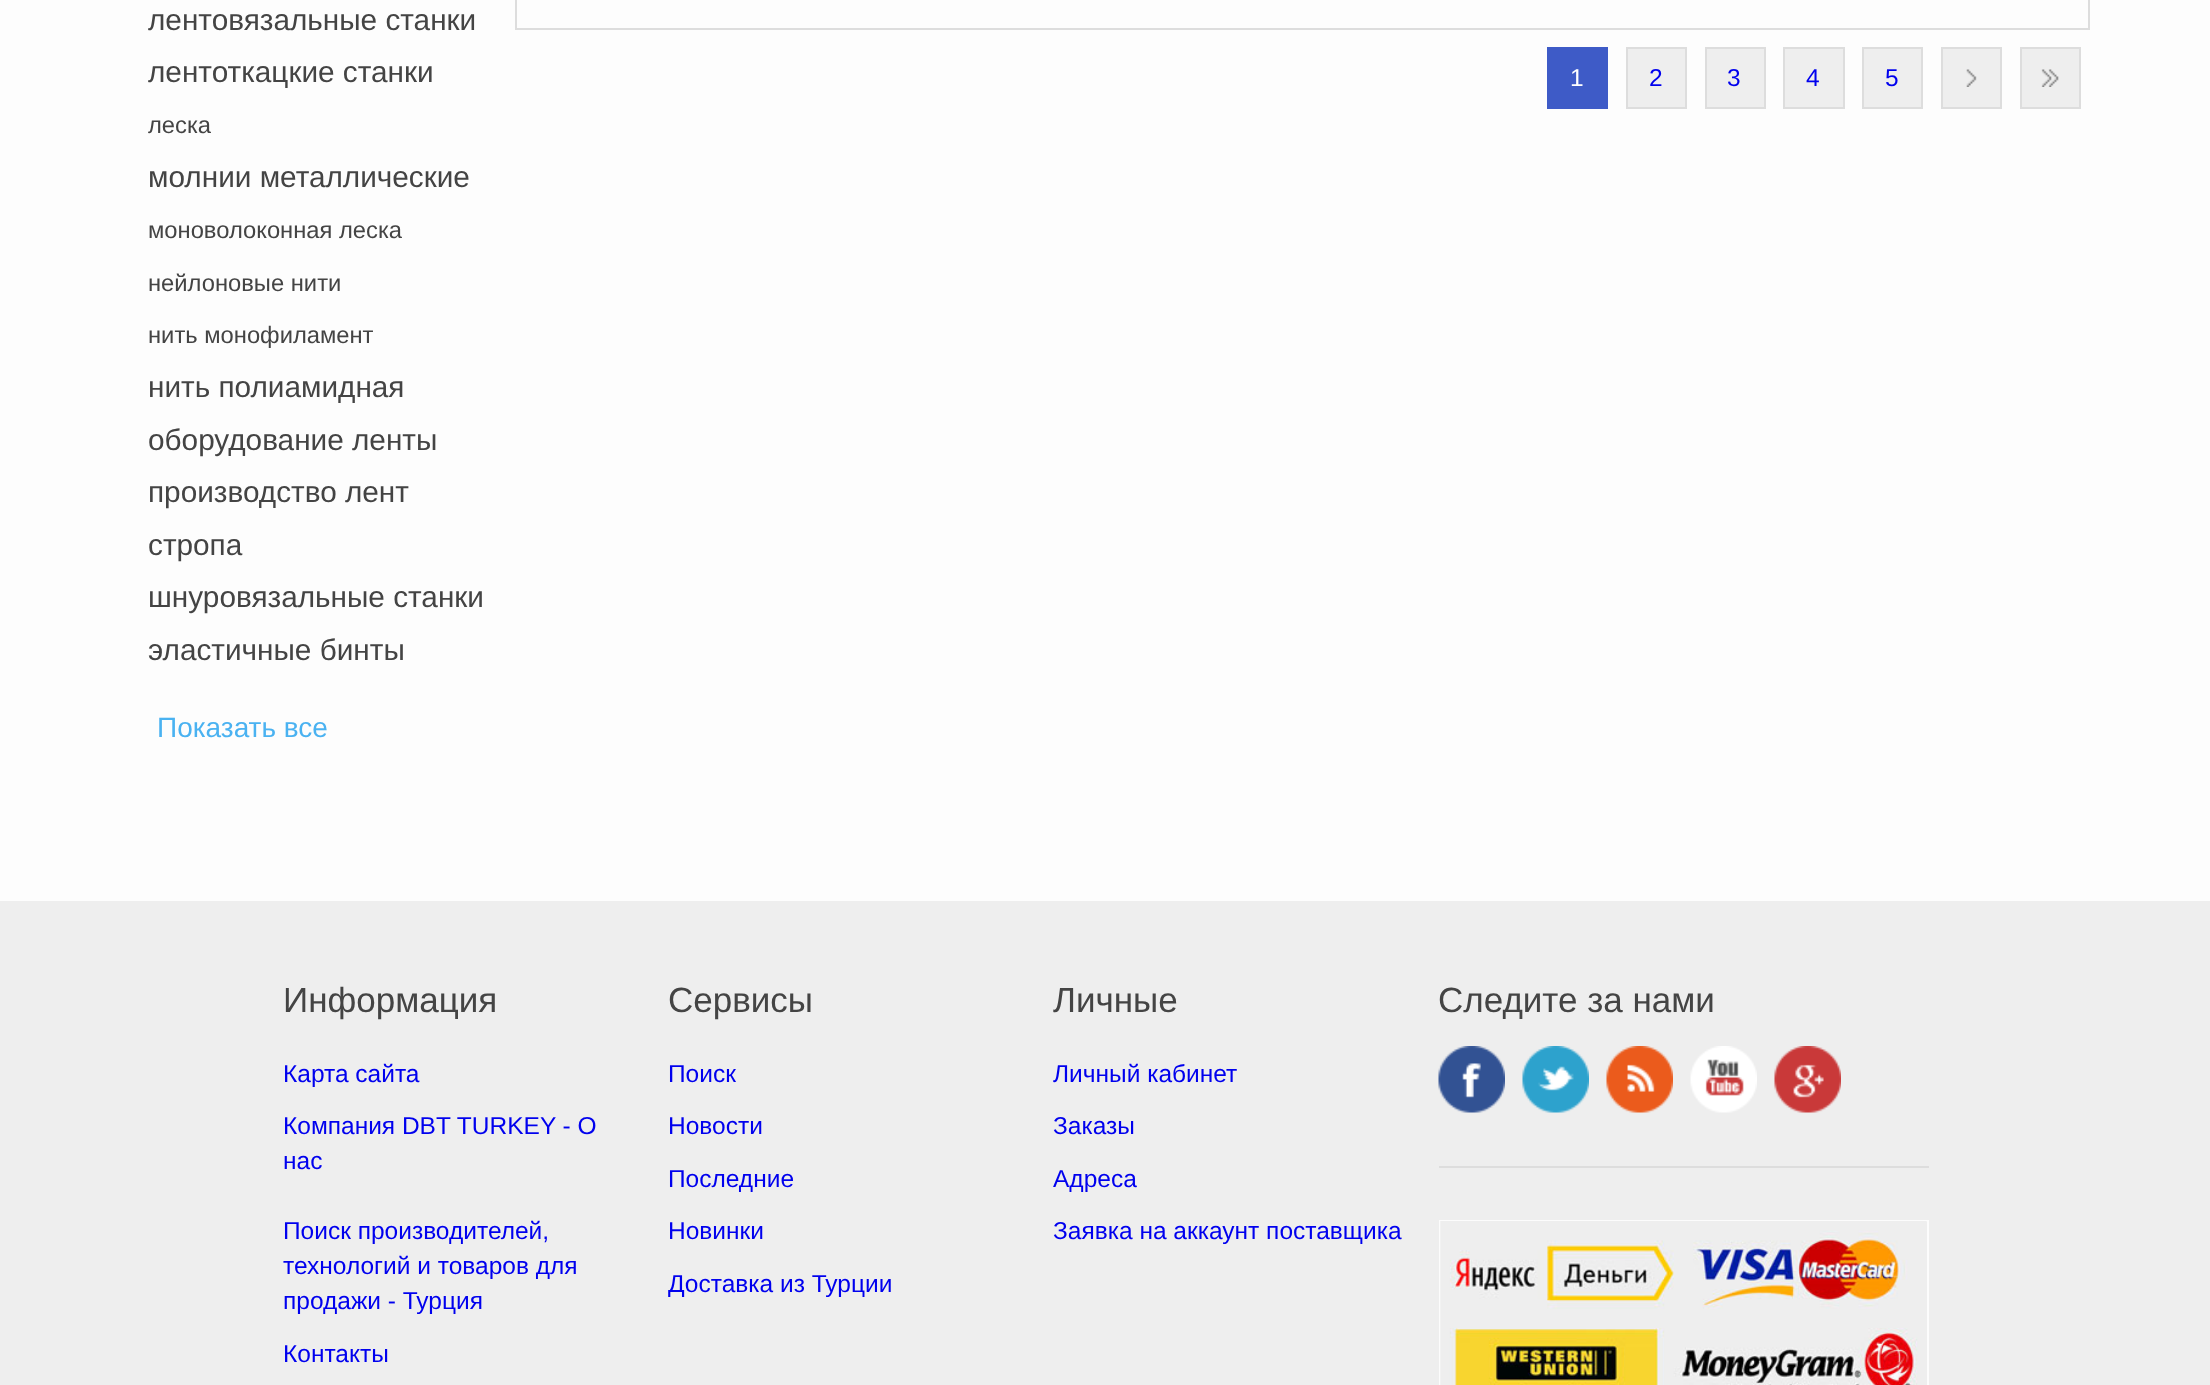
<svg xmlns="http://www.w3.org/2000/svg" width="2210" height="1385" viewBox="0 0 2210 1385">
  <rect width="100%" height="100%" fill="#fdfdfd"/>
  <text x="148" y="30" font-family="Liberation Sans" font-size="29.75" fill="#444444">лентовязальные станки</text>
  <text x="148" y="82" font-family="Liberation Sans" font-size="29.75" fill="#444444">лентоткацкие станки</text>
  <text x="148" y="133" font-family="Liberation Sans" font-size="23.75" fill="#444444">леска</text>
  <text x="148" y="187" font-family="Liberation Sans" font-size="29.75" fill="#444444">молнии металлические</text>
  <text x="148" y="238" font-family="Liberation Sans" font-size="23.75" fill="#444444">моноволоконная леска</text>
  <text x="148" y="291" font-family="Liberation Sans" font-size="23.75" fill="#444444">нейлоновые нити</text>
  <text x="148" y="343" font-family="Liberation Sans" font-size="23.75" fill="#444444">нить монофиламент</text>
  <text x="148" y="397" font-family="Liberation Sans" font-size="29.75" fill="#444444">нить полиамидная</text>
  <text x="148" y="450" font-family="Liberation Sans" font-size="29.75" fill="#444444">оборудование ленты</text>
  <text x="148" y="502" font-family="Liberation Sans" font-size="29.75" fill="#444444">производство лент</text>
  <text x="148" y="555" font-family="Liberation Sans" font-size="29.75" fill="#444444">стропа</text>
  <text x="148" y="607" font-family="Liberation Sans" font-size="29.75" fill="#444444">шнуровязальные станки</text>
  <text x="148" y="660" font-family="Liberation Sans" font-size="29.75" fill="#444444">эластичные бинты</text>
  <text x="157" y="737" font-family="Liberation Sans" font-size="28" fill="#4ab2f1">Показать все</text>
  <rect x="516" y="-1" width="1573" height="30" fill="none" stroke="#dddddd" stroke-width="2"/>
  <rect x="1547" y="47" width="61" height="62" fill="#3e5bc7"/>
  <text x="1570" y="86" font-family="Liberation Sans" font-size="24.5" fill="#ffffff">1</text>
  <rect x="1627" y="48" width="59" height="60" fill="#eeeeee" stroke="#dddddd" stroke-width="2"/>
  <text x="1649" y="86" font-family="Liberation Sans" font-size="24.5" fill="#0000ee">2</text>
  <rect x="1706" y="48" width="59" height="60" fill="#eeeeee" stroke="#dddddd" stroke-width="2"/>
  <text x="1727" y="86" font-family="Liberation Sans" font-size="24.5" fill="#0000ee">3</text>
  <rect x="1784" y="48" width="60" height="60" fill="#eeeeee" stroke="#dddddd" stroke-width="2"/>
  <text x="1806" y="86" font-family="Liberation Sans" font-size="24.5" fill="#0000ee">4</text>
  <rect x="1863" y="48" width="59" height="60" fill="#eeeeee" stroke="#dddddd" stroke-width="2"/>
  <text x="1885" y="86" font-family="Liberation Sans" font-size="24.5" fill="#0000ee">5</text>
  <rect x="1943" y="49" width="57" height="58" fill="#eeeeee"/>
  <image x="1966" y="69" width="11" height="18" href="img1.png"/>
  <rect x="1942" y="48" width="59" height="60" fill="none" stroke="#dddddd" stroke-width="2"/>
  <rect x="2022" y="49" width="57" height="58" fill="#eeeeee"/>
  <image x="2041" y="69" width="18" height="18" href="img2.png"/>
  <rect x="2021" y="48" width="59" height="60" fill="none" stroke="#dddddd" stroke-width="2"/>
  <rect x="0" y="901" width="2210" height="484" fill="#eeeeee"/>
  <text x="283" y="1012" font-family="Liberation Sans" font-size="35" fill="#444444">Информация</text>
  <text x="283" y="1082" font-family="Liberation Sans" font-size="24.5" fill="#0000ee">Карта сайта</text>
  <text x="283" y="1134" font-family="Liberation Sans" font-size="24.5" fill="#0000ee">Компания DBT TURKEY - О</text>
  <text x="283" y="1169" font-family="Liberation Sans" font-size="24.5" fill="#0000ee">нас</text>
  <text x="283" y="1239" font-family="Liberation Sans" font-size="24.5" fill="#0000ee">Поиск производителей,</text>
  <text x="283" y="1274" font-family="Liberation Sans" font-size="24.5" fill="#0000ee">технологий и товаров для</text>
  <text x="283" y="1309" font-family="Liberation Sans" font-size="24.5" fill="#0000ee">продажи - Турция</text>
  <text x="283" y="1362" font-family="Liberation Sans" font-size="24.5" fill="#0000ee">Контакты</text>
  <text x="668" y="1012" font-family="Liberation Sans" font-size="35" fill="#444444">Сервисы</text>
  <text x="668" y="1082" font-family="Liberation Sans" font-size="24.5" fill="#0000ee">Поиск</text>
  <text x="668" y="1134" font-family="Liberation Sans" font-size="24.5" fill="#0000ee">Новости</text>
  <text x="668" y="1187" font-family="Liberation Sans" font-size="24.5" fill="#0000ee">Последние</text>
  <text x="668" y="1239" font-family="Liberation Sans" font-size="24.5" fill="#0000ee">Новинки</text>
  <text x="668" y="1292" font-family="Liberation Sans" font-size="24.5" fill="#0000ee">Доставка из Турции</text>
  <text x="1053" y="1012" font-family="Liberation Sans" font-size="35" fill="#444444">Личные</text>
  <text x="1053" y="1082" font-family="Liberation Sans" font-size="24.5" fill="#0000ee">Личный кабинет</text>
  <text x="1053" y="1134" font-family="Liberation Sans" font-size="24.5" fill="#0000ee">Заказы</text>
  <text x="1053" y="1187" font-family="Liberation Sans" font-size="24.5" fill="#0000ee">Адреса</text>
  <text x="1053" y="1239" font-family="Liberation Sans" font-size="24.5" fill="#0000ee">Заявка на аккаунт поставщика</text>
  <text x="1438" y="1012" font-family="Liberation Sans" font-size="35" fill="#444444">Следите за нами</text>
  <rect x="1439" y="1166" width="490" height="2" fill="#dddddd"/>
  <image x="1438" y="1046" width="67" height="67" href="img3.png"/>
  <image x="1522" y="1046" width="67" height="67" href="img4.png"/>
  <image x="1606" y="1046" width="67" height="67" href="img5.png"/>
  <image x="1690" y="1046" width="67" height="67" href="img6.png"/>
  <image x="1774" y="1046" width="67" height="67" href="img7.png"/>
  <rect x="1440" y="1221" width="488" height="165" fill="none" stroke="#fcfcfc" stroke-width="2"/>
  <image x="1440" y="1221" width="487" height="164" href="img8.png"/>
</svg>
